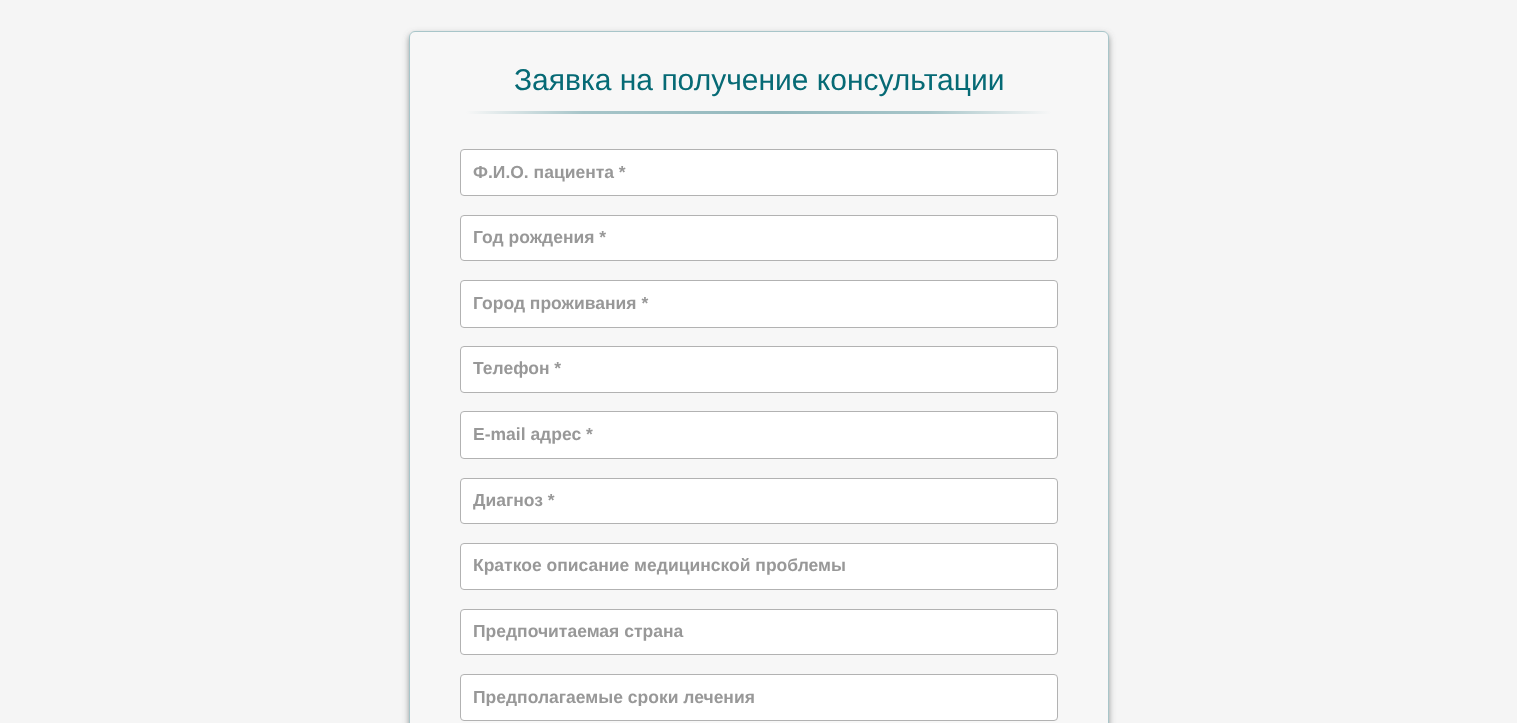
<svg xmlns="http://www.w3.org/2000/svg" width="1517" height="723" viewBox="0 0 1517 723">
  <defs>
    <filter id="blur1" x="-50%" y="-200%" width="200%" height="500%"><feGaussianBlur stdDeviation="3"/></filter>
    <linearGradient id="g1" gradientUnits="userSpaceOnUse" x1="466" y1="113" x2="1051" y2="112"><stop offset="0" stop-color="#f7f7f7"/><stop offset="0.2" stop-color="#a7c5c9"/><stop offset="0.53" stop-color="#93b8bd"/><stop offset="0.79" stop-color="#a7c5c9"/><stop offset="1" stop-color="#f7f7f7"/></linearGradient>
    <clipPath id="clip1"><rect x="473" y="490" width="572" height="20"/></clipPath>
    <clipPath id="clip2"><rect x="473" y="686" width="572" height="20"/></clipPath>
  </defs>
  <rect width="100%" height="100%" fill="#f5f5f5"/>
  <rect x="409" y="34" width="700" height="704" rx="6" fill="#696c6d" fill-opacity="0.7" filter="url(#blur1)"/>
  <rect x="409" y="31" width="700" height="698" rx="6" fill="#f7f7f7"/>
  <rect x="409.5" y="31.5" width="699" height="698" rx="5.5" fill="none" stroke="#93b8bd" stroke-opacity="0.8"/>
  <text x="514" y="90" font-family="Liberation Sans" font-size="30" fill="#066a75">Заявка на получение консультации</text>
  <rect x="466" y="111" width="585" height="3" fill="url(#g1)"/>
  <rect x="460.5" y="149.5" width="597" height="46" rx="3.5" fill="#ffffff" stroke="#b2b2b2"/>
  <text x="473" y="178" font-family="Liberation Sans" font-size="17.5" font-weight="bold" fill="#989898">Ф.И.О. пациента *</text>
  <rect x="460.5" y="215.5" width="597" height="45" rx="3.5" fill="#ffffff" stroke="#b2b2b2"/>
  <text x="473" y="243" font-family="Liberation Sans" font-size="17.5" font-weight="bold" fill="#989898">Год рождения *</text>
  <rect x="460.5" y="280.5" width="597" height="47" rx="3.5" fill="#ffffff" stroke="#b2b2b2"/>
  <text x="473" y="309" font-family="Liberation Sans" font-size="17.5" font-weight="bold" fill="#989898">Город проживания *</text>
  <rect x="460.5" y="346.5" width="597" height="46" rx="3.5" fill="#ffffff" stroke="#b2b2b2"/>
  <text x="473" y="374" font-family="Liberation Sans" font-size="17.5" font-weight="bold" fill="#989898">Телефон *</text>
  <rect x="460.5" y="411.5" width="597" height="47" rx="3.5" fill="#ffffff" stroke="#b2b2b2"/>
  <text x="473" y="440" font-family="Liberation Sans" font-size="17.5" font-weight="bold" fill="#989898">E-mail адрес *</text>
  <rect x="460.5" y="478.5" width="597" height="45" rx="3.5" fill="#ffffff" stroke="#b2b2b2"/>
  <g clip-path="url(#clip1)">
    <text x="473" y="506" font-family="Liberation Sans" font-size="17.5" font-weight="bold" fill="#989898">Диагноз *</text>
  </g>
  <rect x="460.5" y="543.5" width="597" height="46" rx="3.5" fill="#ffffff" stroke="#b2b2b2"/>
  <text x="473" y="571" font-family="Liberation Sans" font-size="17.5" font-weight="bold" fill="#989898">Краткое описание медицинской проблемы</text>
  <rect x="460.5" y="609.5" width="597" height="45" rx="3.5" fill="#ffffff" stroke="#b2b2b2"/>
  <text x="473" y="637" font-family="Liberation Sans" font-size="17.5" font-weight="bold" fill="#989898">Предпочитаемая страна</text>
  <rect x="460.5" y="674.5" width="597" height="46" rx="3.5" fill="#ffffff" stroke="#b2b2b2"/>
  <g clip-path="url(#clip2)">
    <text x="473" y="703" font-family="Liberation Sans" font-size="17.5" font-weight="bold" fill="#989898">Предполагаемые сроки лечения</text>
  </g>
</svg>
